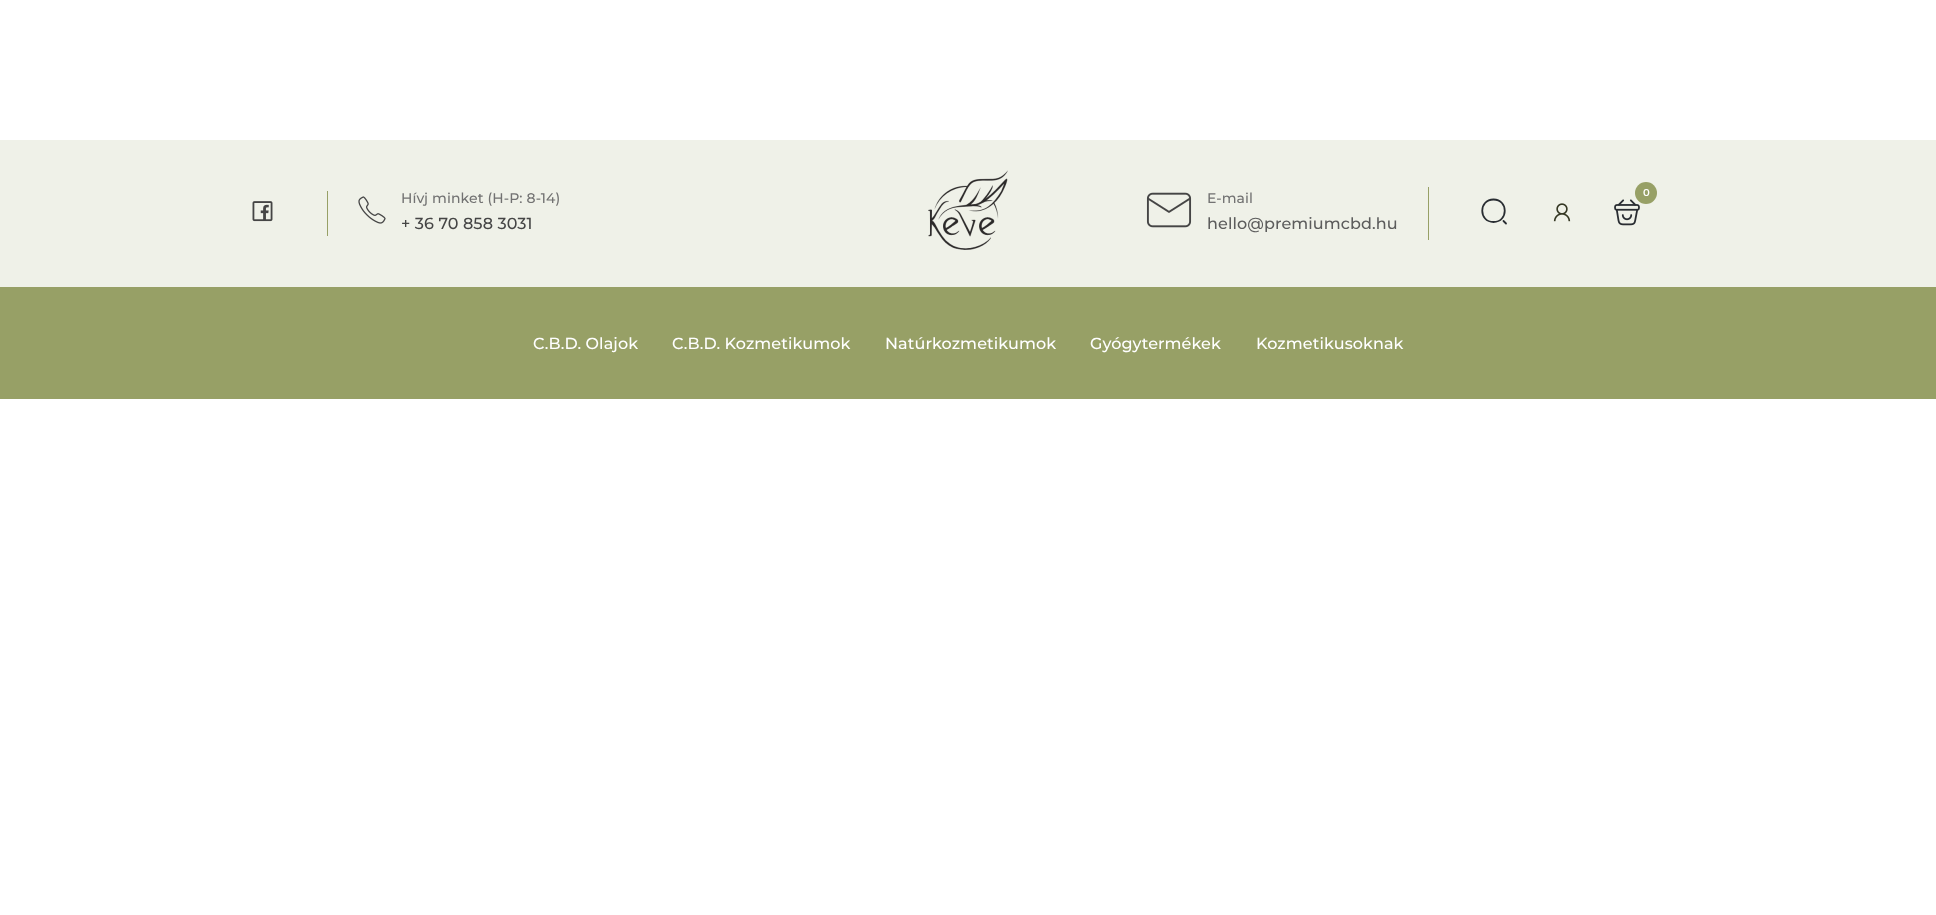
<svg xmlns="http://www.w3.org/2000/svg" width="1936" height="915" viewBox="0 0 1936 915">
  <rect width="100%" height="100%" fill="#ffffff"/>
  <rect x="0" y="140" width="1936" height="147" fill="#eff1e8"/>
  <image x="252" y="201" width="21" height="21" href="img1.png"/>
  <rect x="327" y="191" width="1" height="45" fill="#97a066"/>
  <image x="358" y="196" width="28" height="28" href="img2.png"/>
  <text x="401" y="203" font-family="Montserrat" font-size="14" font-weight="500" letter-spacing="0.1" fill="#727272">Hívj minket (H-P: 8-14)</text>
  <text x="401" y="229" font-family="Montserrat" font-size="16" font-weight="500" letter-spacing="0.1" fill="#454545">+ 36 70 858 3031</text>
  <image x="928" y="170" width="80" height="80" href="img3.png"/>
  <rect x="1428" y="187" width="1" height="53" fill="#97a066"/>
  <image x="1146" y="192" width="46" height="36" href="img4.png"/>
  <text x="1207" y="203" font-family="Montserrat" font-size="14" font-weight="500" letter-spacing="0.1" fill="#727272">E-mail</text>
  <text x="1207" y="229" font-family="Montserrat" font-size="16" font-weight="500" letter-spacing="0.1" fill="#5c5c5c">hello@premiumcbd.hu</text>
  <path d="M1493.5 222C1508.5 222 1508.5 199.5 1493.5 199.5C1478.5 199.5 1478.5 222 1493.5 222ZM1506 223.5L1503.5 221" fill="none" stroke="#292d32" stroke-width="1.8" stroke-linecap="round" stroke-linejoin="round"/>
  <image x="1553" y="203" width="18" height="19" href="img5.png"/>
  <image x="1614" y="199" width="26" height="27" href="img6.png"/>
  <circle cx="1646" cy="193" r="11" fill="#97a066"/>
  <text x="1643" y="196" font-family="Montserrat" font-size="10" font-weight="600" letter-spacing="0.1" fill="#ffffff">0</text>
  <rect x="0" y="287" width="1936" height="112" fill="#97a066"/>
  <text x="533" y="349" font-family="Montserrat" font-size="16" font-weight="500" letter-spacing="0.1" fill="#ffffff">C.B.D. Olajok</text>
  <text x="672" y="349" font-family="Montserrat" font-size="16" font-weight="500" letter-spacing="0.1" fill="#ffffff">C.B.D. Kozmetikumok</text>
  <text x="885" y="349" font-family="Montserrat" font-size="16" font-weight="500" letter-spacing="0.1" fill="#ffffff">Natúrkozmetikumok</text>
  <text x="1090" y="349" font-family="Montserrat" font-size="16" font-weight="500" letter-spacing="0.1" fill="#ffffff">Gyógytermékek</text>
  <text x="1256" y="349" font-family="Montserrat" font-size="16" font-weight="500" letter-spacing="0.1" fill="#ffffff">Kozmetikusoknak</text>
</svg>
